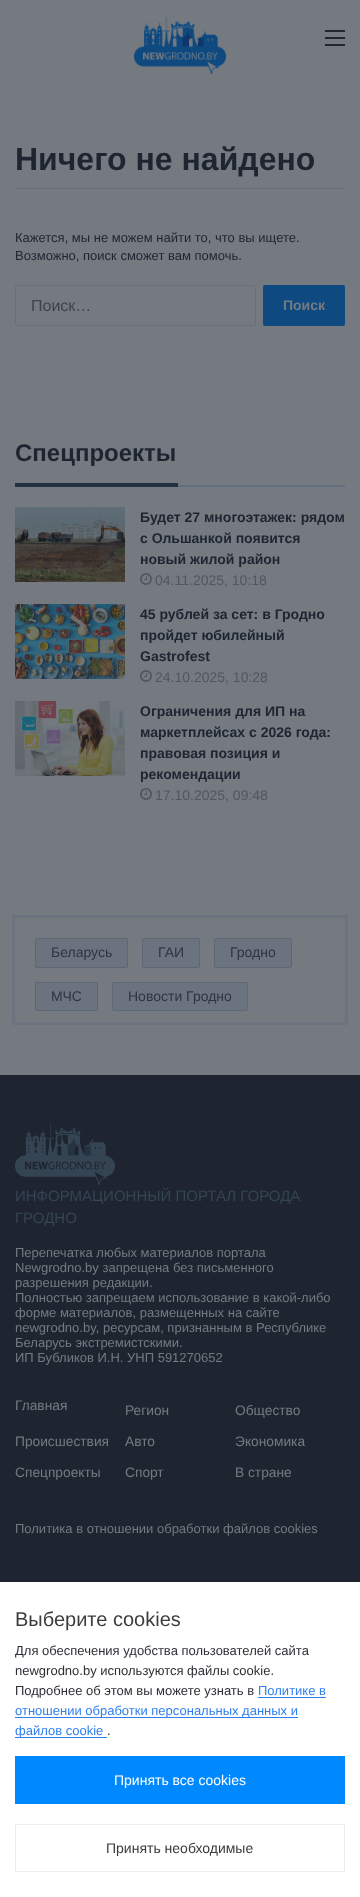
<svg xmlns="http://www.w3.org/2000/svg" width="360" height="1897" viewBox="0 0 360 1897">
  <rect width="100%" height="100%" fill="#747a80"/>
  <image x="134" y="15" width="92" height="59" href="img1.png"/>
  <rect x="325" y="37" width="20" height="2" fill="#1f272f"/>
  <rect x="325" y="30" width="20" height="2" fill="#1f272f"/>
  <rect x="325" y="44" width="20" height="2" fill="#1f272f"/>
  <rect x="15" y="188" width="330" height="1" fill="#636f7c"/>
  <text x="15" y="170" font-family="Liberation Sans" font-size="32" font-weight="bold" fill="#1e2531">Ничего не найдено</text>
  <text x="15" y="242" font-family="Liberation Sans" font-size="13" fill="#1e2531">Кажется, мы не можем найти то, что вы ищете.</text>
  <text x="15" y="260" font-family="Liberation Sans" font-size="13" fill="#1e2531">Возможно, поиск сможет вам помочь.</text>
  <rect x="15.5" y="285.5" width="240" height="40" rx="1.5" fill="none" stroke="#6a7076"/>
  <text x="31" y="311" font-family="Liberation Sans" font-size="16" fill="#3d4349">Поиск…</text>
  <rect x="263" y="285" width="82" height="41" rx="2" fill="#0e4a80"/>
  <text x="283" y="310" font-family="Liberation Sans" font-size="14" font-weight="bold" fill="#747a80">Поиск</text>
  <rect x="178" y="485" width="167" height="2" fill="#636f7c"/>
  <text x="15" y="461" font-family="Liberation Sans" font-size="24" font-weight="bold" fill="#1e2531">Спецпроекты</text>
  <rect x="15" y="483" width="163" height="4" fill="#23303f"/>
  <image x="15" y="507" width="110" height="75" href="img2.png"/>
  <text x="140" y="522" font-family="Liberation Sans" font-size="14" font-weight="bold" fill="#1e2531">Будет 27 многоэтажек: рядом</text>
  <text x="140" y="543" font-family="Liberation Sans" font-size="14" font-weight="bold" fill="#1e2531">с Ольшанкой появится</text>
  <text x="140" y="564" font-family="Liberation Sans" font-size="14" font-weight="bold" fill="#1e2531">новый жилой район</text>
  <image x="140" y="573" width="12" height="12" href="img3.png"/>
  <text x="155" y="585" font-family="Liberation Sans" font-size="14" fill="#505760">04.11.2025, 10:18</text>
  <image x="15" y="604" width="110" height="75" href="img4.png"/>
  <text x="140" y="619" font-family="Liberation Sans" font-size="14" font-weight="bold" fill="#1e2531">45 рублей за сет: в Гродно</text>
  <text x="140" y="640" font-family="Liberation Sans" font-size="14" font-weight="bold" fill="#1e2531">пройдет юбилейный</text>
  <text x="140" y="661" font-family="Liberation Sans" font-size="14" font-weight="bold" fill="#1e2531">Gastrofest</text>
  <image x="140" y="670" width="12" height="12" href="img3.png"/>
  <text x="155" y="682" font-family="Liberation Sans" font-size="14" fill="#505760">24.10.2025, 10:28</text>
  <image x="15" y="701" width="110" height="75" href="img5.png"/>
  <text x="140" y="716" font-family="Liberation Sans" font-size="14" font-weight="bold" fill="#1e2531">Ограничения для ИП на</text>
  <text x="140" y="737" font-family="Liberation Sans" font-size="14" font-weight="bold" fill="#1e2531">маркетплейсах с 2026 года:</text>
  <text x="140" y="758" font-family="Liberation Sans" font-size="14" font-weight="bold" fill="#1e2531">правовая позиция и</text>
  <text x="140" y="779" font-family="Liberation Sans" font-size="14" font-weight="bold" fill="#1e2531">рекомендации</text>
  <image x="140" y="788" width="12" height="12" href="img3.png"/>
  <text x="155" y="800" font-family="Liberation Sans" font-size="14" fill="#505760">17.10.2025, 09:48</text>
  <rect x="13.5" y="916.5" width="333" height="107" fill="none" stroke="#6b747e" stroke-width="3"/>
  <rect x="35.5" y="938.5" width="92" height="29" rx="1.5" fill="#6b747e" stroke="#5e6776"/>
  <text x="51" y="957" font-family="Liberation Sans" font-size="14" fill="#2d3444">Беларусь</text>
  <rect x="142.5" y="938.5" width="57" height="29" rx="1.5" fill="#6b747e" stroke="#5e6776"/>
  <text x="158" y="957" font-family="Liberation Sans" font-size="14" fill="#2d3444">ГАИ</text>
  <rect x="214.5" y="938.5" width="77" height="29" rx="1.5" fill="#6b747e" stroke="#5e6776"/>
  <text x="230" y="957" font-family="Liberation Sans" font-size="14" fill="#2d3444">Гродно</text>
  <rect x="35.5" y="982.5" width="62" height="28" rx="1.5" fill="#6b747e" stroke="#5e6776"/>
  <text x="51" y="1001" font-family="Liberation Sans" font-size="14" fill="#2d3444">МЧС</text>
  <rect x="112.5" y="982.5" width="135" height="28" rx="1.5" fill="#6b747e" stroke="#5e6776"/>
  <text x="128" y="1001" font-family="Liberation Sans" font-size="14" fill="#2d3444">Новости Гродно</text>
  <rect x="0" y="1075" width="360" height="507" fill="#1e2531"/>
  <image x="15" y="1120" width="100" height="65" href="img6.png"/>
  <text x="15" y="1201" font-family="Liberation Sans" font-size="15" fill="#344453">ИНФОРМАЦИОННЫЙ ПОРТАЛ ГОРОДА</text>
  <text x="15" y="1223" font-family="Liberation Sans" font-size="15" fill="#344453">ГРОДНО</text>
  <text x="15" y="1257" font-family="Liberation Sans" font-size="13" fill="#747a80">Перепечатка любых материалов портала</text>
  <text x="15" y="1272" font-family="Liberation Sans" font-size="13" fill="#747a80">Newgrodno.by запрещена без письменного</text>
  <text x="15" y="1287" font-family="Liberation Sans" font-size="13" fill="#747a80">разрешения редакции.</text>
  <text x="15" y="1302" font-family="Liberation Sans" font-size="13" fill="#747a80">Полностью запрещаем использование в какой-либо</text>
  <text x="15" y="1317" font-family="Liberation Sans" font-size="13" fill="#747a80">форме материалов, размещенных на сайте</text>
  <text x="15" y="1332" font-family="Liberation Sans" font-size="13" fill="#747a80">newgrodno.by, ресурсам, признанным в Республике</text>
  <text x="15" y="1347" font-family="Liberation Sans" font-size="13" fill="#747a80">Беларусь экстремистскими.</text>
  <text x="15" y="1362" font-family="Liberation Sans" font-size="13" fill="#747a80">ИП Бубликов И.Н. УНП 591270652</text>
  <text x="15" y="1410" font-family="Liberation Sans" font-size="13.75" fill="#747a80">Главная</text>
  <text x="125" y="1415" font-family="Liberation Sans" font-size="13.75" fill="#747a80">Регион</text>
  <text x="235" y="1415" font-family="Liberation Sans" font-size="13.75" fill="#747a80">Общество</text>
  <text x="15" y="1446" font-family="Liberation Sans" font-size="13.75" fill="#747a80">Происшествия</text>
  <text x="125" y="1446" font-family="Liberation Sans" font-size="13.75" fill="#747a80">Авто</text>
  <text x="235" y="1446" font-family="Liberation Sans" font-size="13.75" fill="#747a80">Экономика</text>
  <text x="15" y="1477" font-family="Liberation Sans" font-size="13.75" fill="#747a80">Спецпроекты</text>
  <text x="125" y="1477" font-family="Liberation Sans" font-size="13.75" fill="#747a80">Cпорт</text>
  <text x="235" y="1477" font-family="Liberation Sans" font-size="13.75" fill="#747a80">В стране</text>
  <text x="15" y="1533" font-family="Liberation Sans" font-size="13" fill="#747a80">Политика в отношении обработки файлов cookies</text>
  <rect x="0" y="1582" width="360" height="315" fill="#ffffff"/>
  <text x="15" y="1626" font-family="Liberation Sans" font-size="20" fill="#3e3c3c">Выберите cookies</text>
  <text x="15" y="1655" font-family="Liberation Sans" font-size="13" fill="#2c2f34">Для обеспечения удобства пользователей сайта</text>
  <text x="15" y="1675" font-family="Liberation Sans" font-size="13" fill="#2c2f34">newgrodno.by используются файлы cookie.</text>
  <text x="15" y="1695" font-family="Liberation Sans" font-size="13" fill="#2c2f34">Подробнее об этом вы можете узнать в</text>
  <text x="258" y="1695" font-family="Liberation Sans" font-size="13" fill="#2f80ed">Политике в</text>
  <rect x="258" y="1697" width="68" height="1" fill="#2f80ed"/>
  <rect x="15" y="1717" width="283" height="1" fill="#2f80ed"/>
  <text x="15" y="1715" font-family="Liberation Sans" font-size="13" fill="#2f80ed">отношении обработки персональных данных и</text>
  <rect x="15" y="1737" width="92" height="1" fill="#2f80ed"/>
  <text x="15" y="1735" font-family="Liberation Sans" font-size="13" fill="#2f80ed">файлов cookie</text>
  <text x="107" y="1735" font-family="Liberation Sans" font-size="13" fill="#2c2f34">.</text>
  <rect x="15" y="1756" width="330" height="48" fill="#0088ff"/>
  <text x="114" y="1785" font-family="Liberation Sans" font-size="14" fill="#ffffff">Принять все cookies</text>
  <rect x="15.5" y="1824.5" width="329" height="47" fill="none" stroke="#ececec"/>
  <text x="106" y="1853" font-family="Liberation Sans" font-size="14" fill="#3e3c3c">Принять необходимые</text>
</svg>
